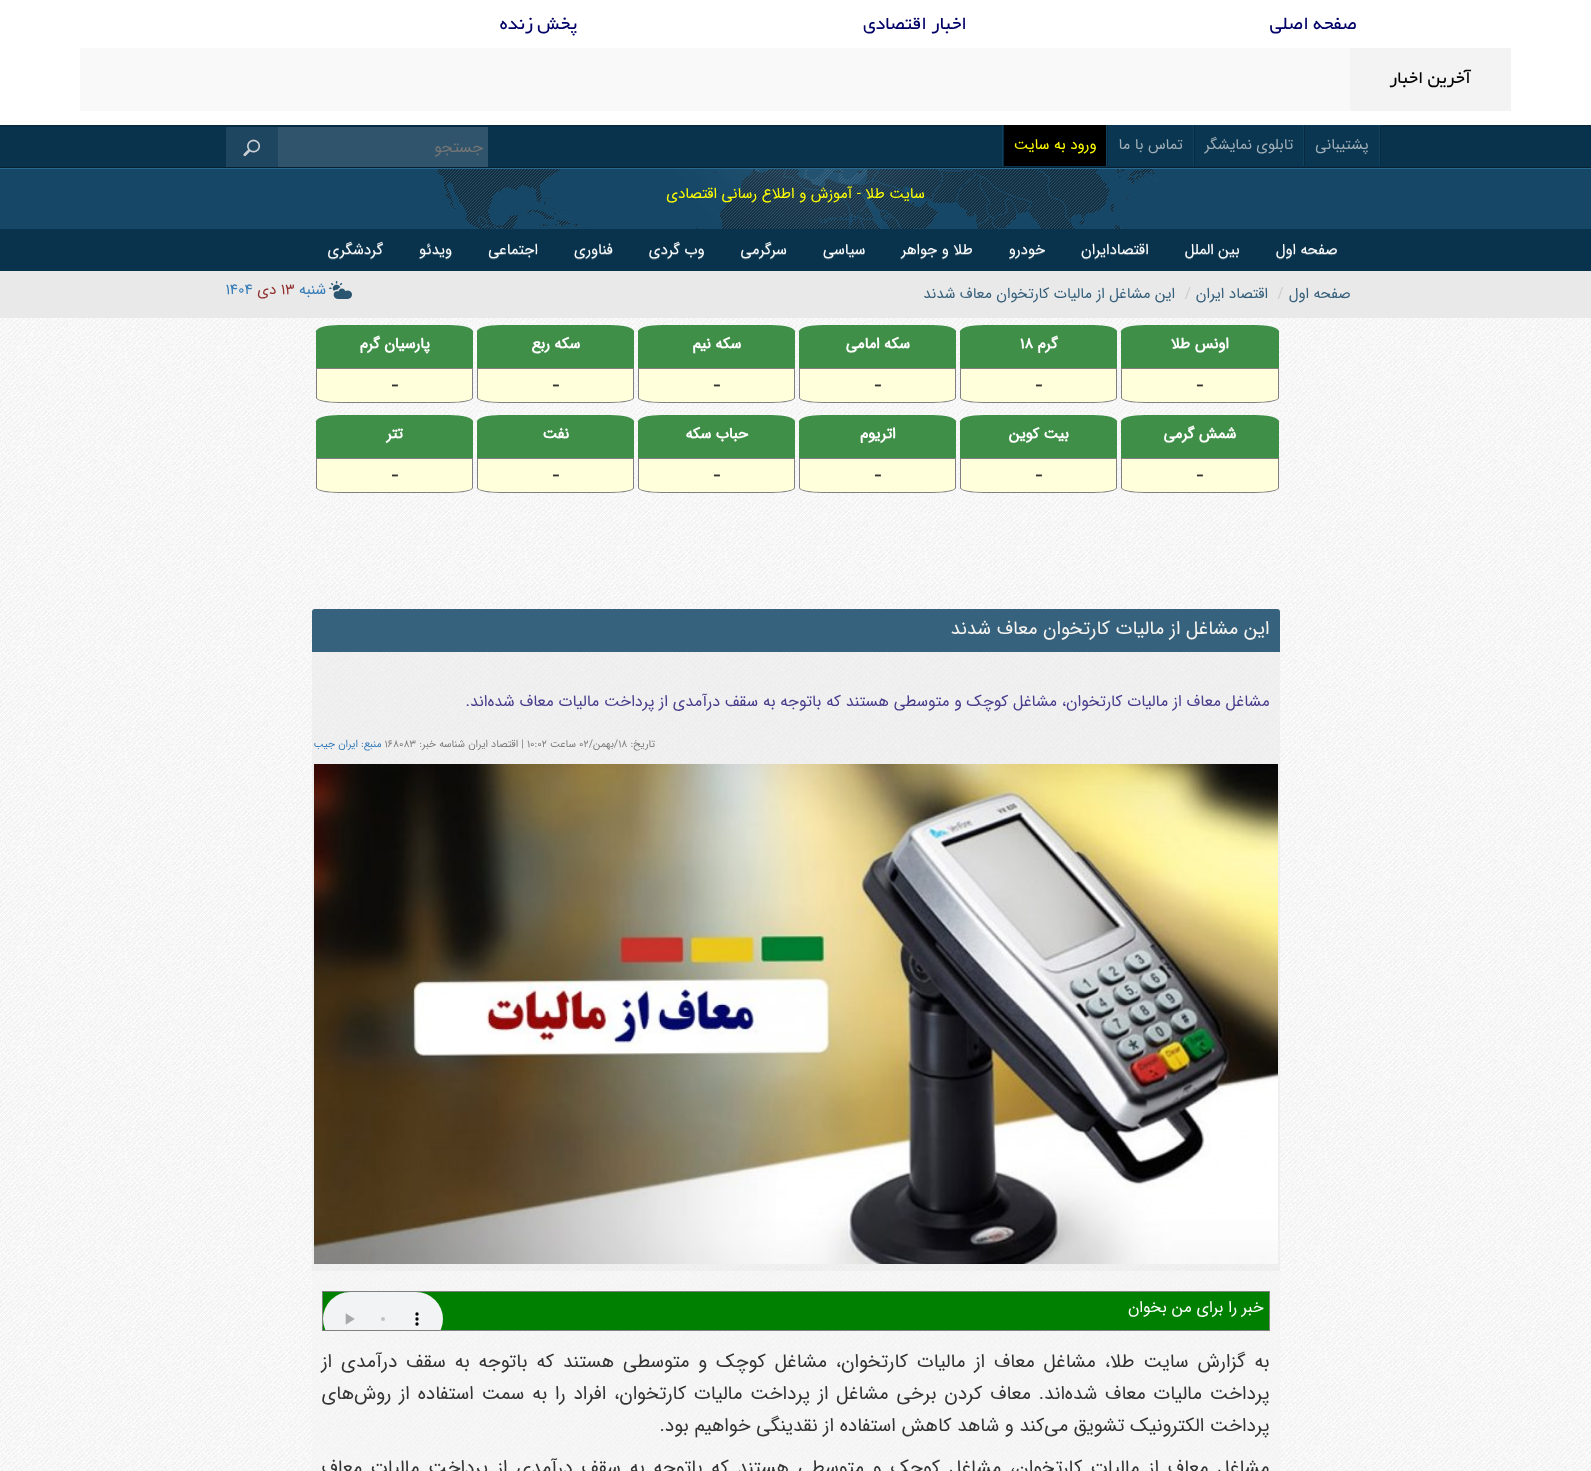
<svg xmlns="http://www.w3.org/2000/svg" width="1591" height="1471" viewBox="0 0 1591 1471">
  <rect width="100%" height="100%" fill="#ffffff"/>
  <text x="1357" y="29" font-family="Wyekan" font-size="22" direction="rtl" fill="#000066">صفحه اصلی</text>
  <text x="967" y="29" font-family="Wyekan" font-size="22" direction="rtl" fill="#000066">اخبار اقتصادی</text>
  <text x="577" y="29" font-family="Wyekan" font-size="22" direction="rtl" fill="#000066">پخش زنده</text>
  <rect x="80" y="48" width="1270" height="63" fill="#f9f9f9"/>
  <rect x="1350" y="48" width="161" height="63" fill="#f3f3f3"/>
  <text x="1471" y="83" font-family="Wyekan" font-size="21" direction="rtl" fill="#000000">آخرین اخبار</text>
  <image x="0" y="125" width="1591" height="1346" href="img1.png"/>
</svg>
